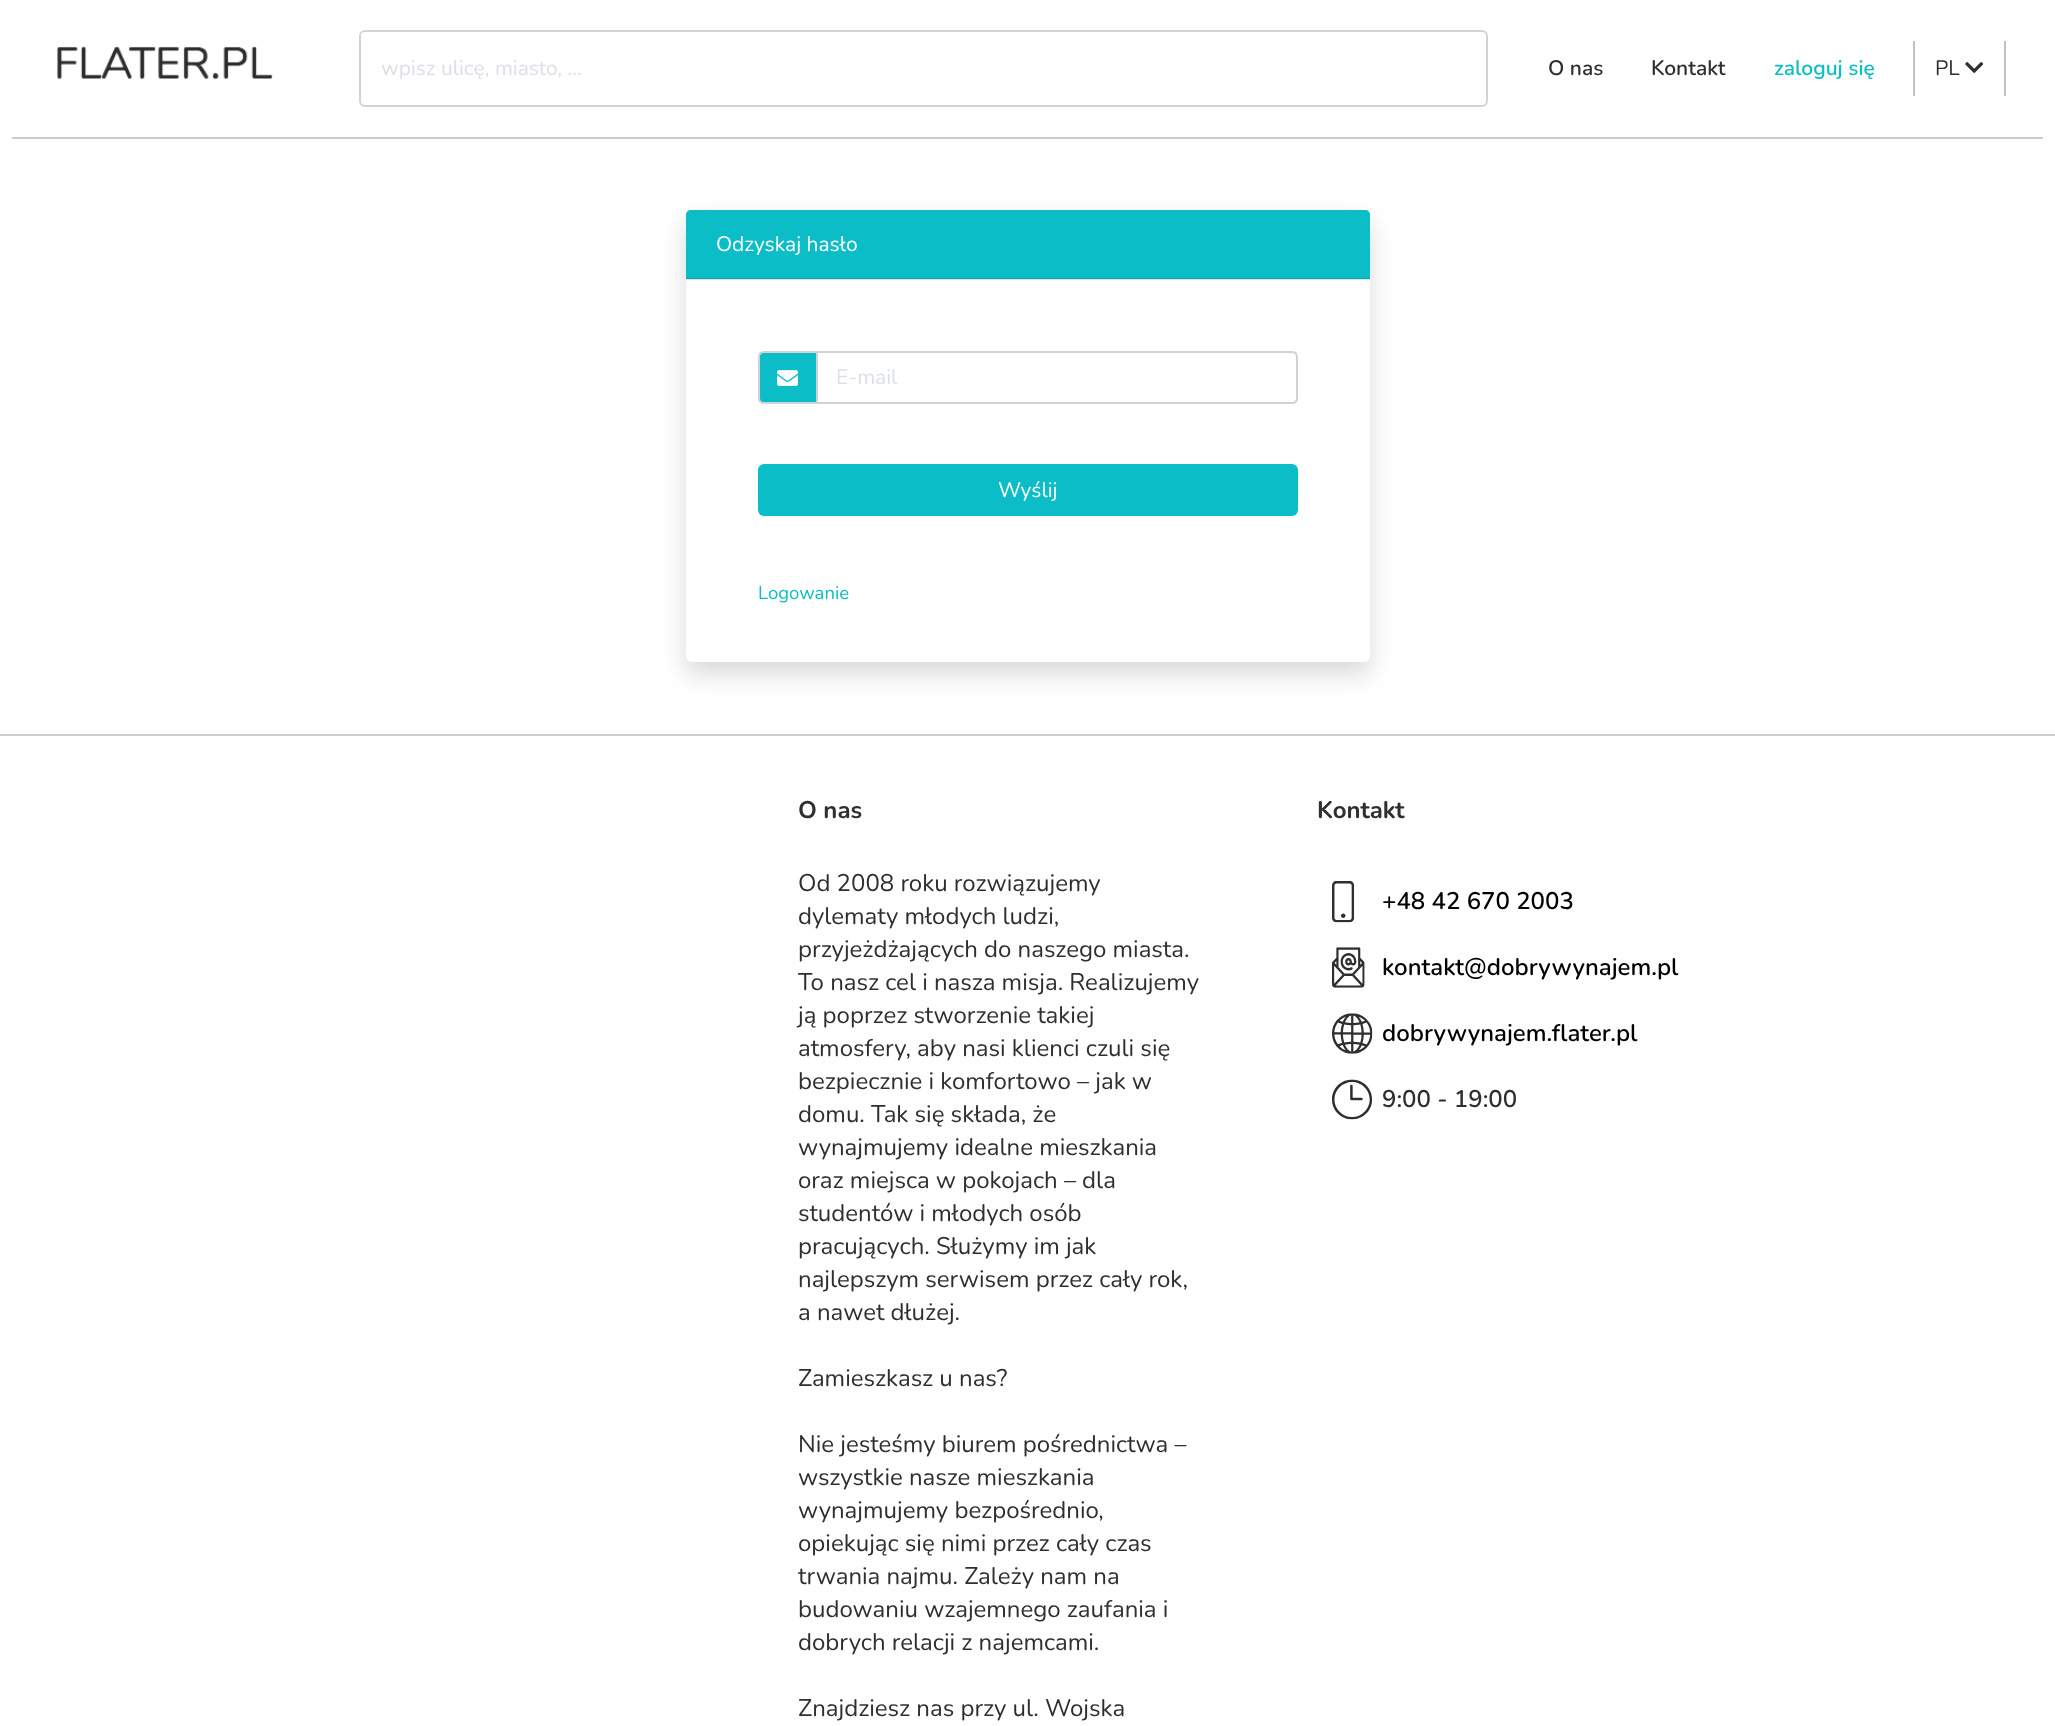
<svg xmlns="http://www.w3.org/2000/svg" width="2055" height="1726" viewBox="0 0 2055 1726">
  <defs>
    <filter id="blur1" x="-50%" y="-200%" width="200%" height="500%"><feGaussianBlur stdDeviation="12"/></filter>
  </defs>
  <rect width="100%" height="100%" fill="#ffffff"/>
  <rect x="12" y="137" width="2031" height="2" fill="#cccccc"/>
  <image x="57" y="46" width="216" height="34" href="img1.png"/>
  <rect x="360" y="31" width="1127" height="75" rx="5" fill="none" stroke="#ced4da" stroke-width="2"/>
  <text x="381" y="75" font-family="Nunito" font-size="21" fill="#dcdfe6">wpisz ulicę, miasto, ...</text>
  <text x="1548" y="75" font-family="Nunito" font-size="21" font-weight="600" fill="#302e2e">O nas</text>
  <text x="1651" y="75" font-family="Nunito" font-size="21" font-weight="600" fill="#302e2e">Kontakt</text>
  <text x="1774" y="75" font-family="Nunito" font-size="21" font-weight="600" fill="#0abdc6">zaloguj się</text>
  <rect x="1913" y="41" width="2" height="55" fill="#c0c0c0"/>
  <text x="1935" y="75" font-family="Nunito" font-size="21" fill="#302e2e">PL</text>
  <image x="1965" y="62" width="19" height="11" href="img2.png"/>
  <rect x="2004" y="41" width="2" height="55" fill="#c0c0c0"/>
  <rect x="686" y="222" width="684" height="452" rx="6" fill="#000000" fill-opacity="0.15" filter="url(#blur1)"/>
  <rect x="686" y="210" width="684" height="452" rx="6" fill="#ffffff"/>
  <path d="M691 210H1365C1368 210 1370 212 1370 215V279H686V215C686 212 688 210 691 210Z" fill="#0abdc6"/>
  <rect x="686" y="278" width="684" height="2" fill="#000000" fill-opacity="0.12"/>
  <text x="716" y="251" font-family="Nunito" font-size="21" fill="#ffffff">Odzyskaj hasło</text>
  <path d="M764 352H817V403H764C761 403 759 401 759 398V357C759 354 761 352 764 352Z" fill="#0abdc6" stroke="#ced4da" stroke-width="2"/>
  <image x="777" y="370" width="21" height="16" href="img3.png"/>
  <path d="M817 352H1292C1295 352 1297 354 1297 357V398C1297 401 1295 403 1292 403H817Z" fill="none" stroke="#ced4da" stroke-width="2"/>
  <text x="836" y="384" font-family="Nunito" font-size="21" fill="#dcdfe6">E-mail</text>
  <rect x="758" y="464" width="540" height="52" rx="6" fill="#0abdc6"/>
  <text x="998" y="497" font-family="Nunito" font-size="21" fill="#ffffff">Wyślij</text>
  <text x="758" y="599" font-family="Nunito" font-size="18.5" fill="#0abdc6">Logowanie</text>
  <rect x="0" y="734" width="2055" height="2" fill="#cccccc"/>
  <text x="798" y="818" font-family="Nunito" font-size="24" font-weight="bold" fill="#302e2e">O nas</text>
  <text x="798" y="891" font-family="Nunito" font-size="24" fill="#302e2e">Od 2008 roku rozwiązujemy</text>
  <text x="798" y="924" font-family="Nunito" font-size="24" fill="#302e2e">dylematy młodych ludzi,</text>
  <text x="798" y="957" font-family="Nunito" font-size="24" fill="#302e2e">przyjeżdżających do naszego miasta.</text>
  <text x="798" y="990" font-family="Nunito" font-size="24" fill="#302e2e">To nasz cel i nasza misja. Realizujemy</text>
  <text x="798" y="1023" font-family="Nunito" font-size="24" fill="#302e2e">ją poprzez stworzenie takiej</text>
  <text x="798" y="1056" font-family="Nunito" font-size="24" fill="#302e2e">atmosfery, aby nasi klienci czuli się</text>
  <text x="798" y="1089" font-family="Nunito" font-size="24" fill="#302e2e">bezpiecznie i komfortowo – jak w</text>
  <text x="798" y="1122" font-family="Nunito" font-size="24" fill="#302e2e">domu. Tak się składa, że</text>
  <text x="798" y="1155" font-family="Nunito" font-size="24" fill="#302e2e">wynajmujemy idealne mieszkania</text>
  <text x="798" y="1188" font-family="Nunito" font-size="24" fill="#302e2e">oraz miejsca w pokojach – dla</text>
  <text x="798" y="1221" font-family="Nunito" font-size="24" fill="#302e2e">studentów i młodych osób</text>
  <text x="798" y="1254" font-family="Nunito" font-size="24" fill="#302e2e">pracujących. Służymy im jak</text>
  <text x="798" y="1287" font-family="Nunito" font-size="24" fill="#302e2e">najlepszym serwisem przez cały rok,</text>
  <text x="798" y="1320" font-family="Nunito" font-size="24" fill="#302e2e">a nawet dłużej.</text>
  <text x="798" y="1386" font-family="Nunito" font-size="24" fill="#302e2e">Zamieszkasz u nas?</text>
  <text x="798" y="1452" font-family="Nunito" font-size="24" fill="#302e2e">Nie jesteśmy biurem pośrednictwa –</text>
  <text x="798" y="1485" font-family="Nunito" font-size="24" fill="#302e2e">wszystkie nasze mieszkania</text>
  <text x="798" y="1518" font-family="Nunito" font-size="24" fill="#302e2e">wynajmujemy bezpośrednio,</text>
  <text x="798" y="1551" font-family="Nunito" font-size="24" fill="#302e2e">opiekując się nimi przez cały czas</text>
  <text x="798" y="1584" font-family="Nunito" font-size="24" fill="#302e2e">trwania najmu. Zależy nam na</text>
  <text x="798" y="1617" font-family="Nunito" font-size="24" fill="#302e2e">budowaniu wzajemnego zaufania i</text>
  <text x="798" y="1650" font-family="Nunito" font-size="24" fill="#302e2e">dobrych relacji z najemcami.</text>
  <text x="798" y="1716" font-family="Nunito" font-size="24" fill="#302e2e">Znajdziesz nas przy ul. Wojska</text>
  <text x="1317" y="818" font-family="Nunito" font-size="24" font-weight="bold" fill="#302e2e">Kontakt</text>
  <image x="1332" y="881" width="22" height="42" href="img4.png"/>
  <text x="1382" y="909" font-family="Nunito" font-size="24" font-weight="600" fill="#000000">+48 42 670 2003</text>
  <image x="1332" y="947" width="33" height="41" href="img5.png"/>
  <text x="1382" y="975" font-family="Nunito" font-size="24" font-weight="600" fill="#000000">kontakt@dobrywynajem.pl</text>
  <image x="1332" y="1013" width="41" height="41" href="img6.png"/>
  <text x="1382" y="1041" font-family="Nunito" font-size="24" font-weight="600" fill="#000000">dobrywynajem.flater.pl</text>
  <image x="1332" y="1079" width="40" height="41" href="img7.png"/>
  <text x="1382" y="1107" font-family="Nunito" font-size="24" font-weight="600" fill="#302e2e">9:00 - 19:00</text>
</svg>
